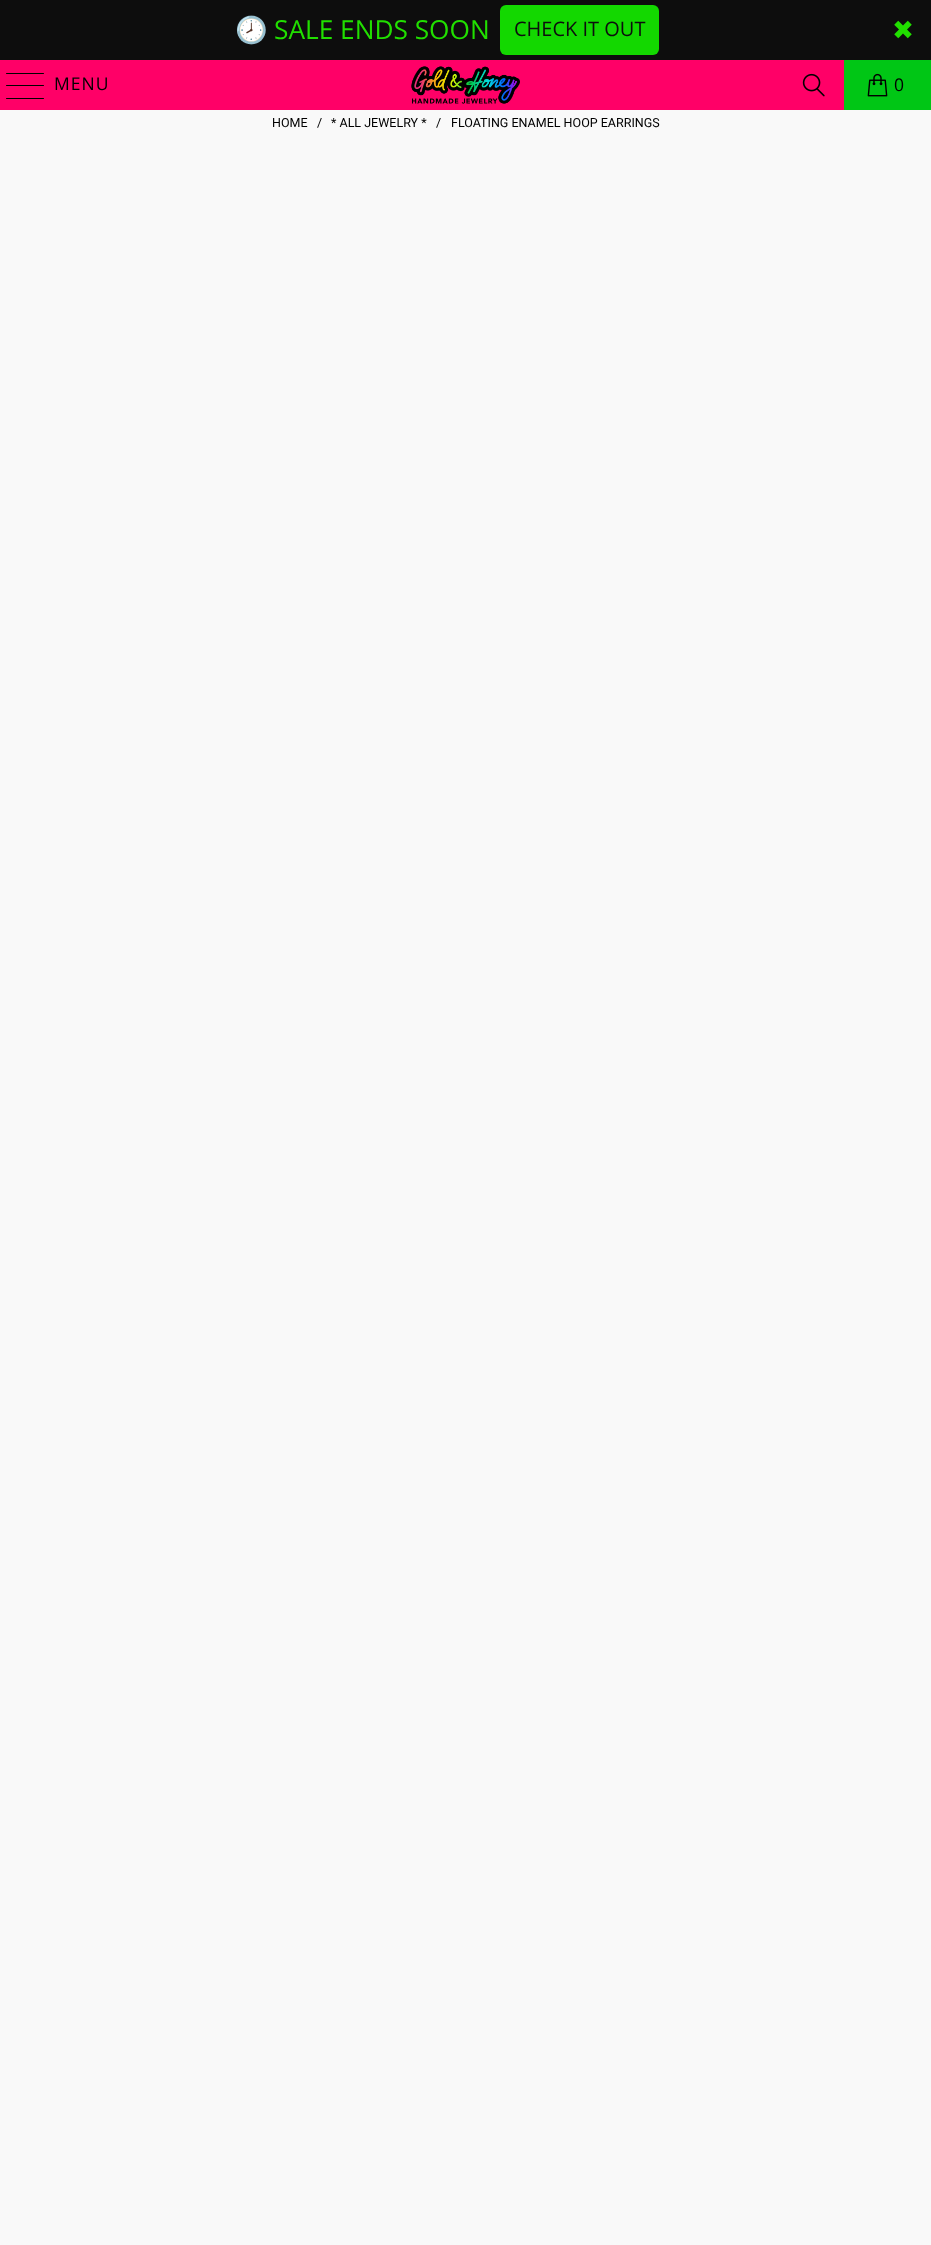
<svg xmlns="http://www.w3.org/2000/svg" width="931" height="2245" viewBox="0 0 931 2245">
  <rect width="100%" height="100%" fill="#f9f9f9"/>
  <rect x="0" y="0" width="931" height="60" fill="#0d0d0d"/>
  <text x="235" y="39" font-family="Noto Color Emoji" font-size="26.25" fill="#21df00">🕗</text>
  <text x="274" y="39" font-family="Open Sans" font-size="26.25" fill="#21df00">SALE ENDS SOON</text>
  <rect x="500" y="5" width="159" height="50" rx="6" fill="#13d800"/>
  <text x="514" y="36" font-family="Open Sans" font-size="20" fill="#0d0d0d">CHECK IT OUT</text>
  <text x="892" y="39" font-family="DejaVu Sans" font-size="26.25" fill="#21df00">✖</text>
  <rect x="0" y="60" width="844" height="50" fill="#ff0067"/>
  <rect x="6" y="73" width="38" height="1" rx="0.5" fill="#000000"/>
  <rect x="6" y="85" width="38" height="1" rx="0.5" fill="#000000"/>
  <rect x="6" y="98" width="38" height="1" rx="0.5" fill="#000000"/>
  <text x="54" y="90" font-family="Open Sans" font-size="17.5" letter-spacing="1" fill="#000000">MENU</text>
  <image x="411" y="66" width="109" height="38" href="img1.png"/>
  <image x="802" y="73" width="23" height="24" href="img2.png"/>
  <rect x="844" y="60" width="87" height="50" fill="#00c615"/>
  <image x="867" y="73" width="21" height="24" href="img3.png"/>
  <text x="894" y="91" font-family="Open Sans" font-size="17.5" letter-spacing="1" fill="#000000">0</text>
  <text x="272" y="127" font-family="Roboto" font-size="12.5" fill="#000000">HOME</text>
  <text x="317" y="127" font-family="Roboto" font-size="12.5" fill="#000000">/</text>
  <text x="331" y="127" font-family="Roboto" font-size="12.5" fill="#000000">* ALL JEWELRY *</text>
  <text x="436" y="127" font-family="Roboto" font-size="12.5" fill="#000000">/</text>
  <text x="451" y="127" font-family="Roboto" font-size="12.5" fill="#000000">FLOATING ENAMEL HOOP EARRINGS</text>
</svg>
